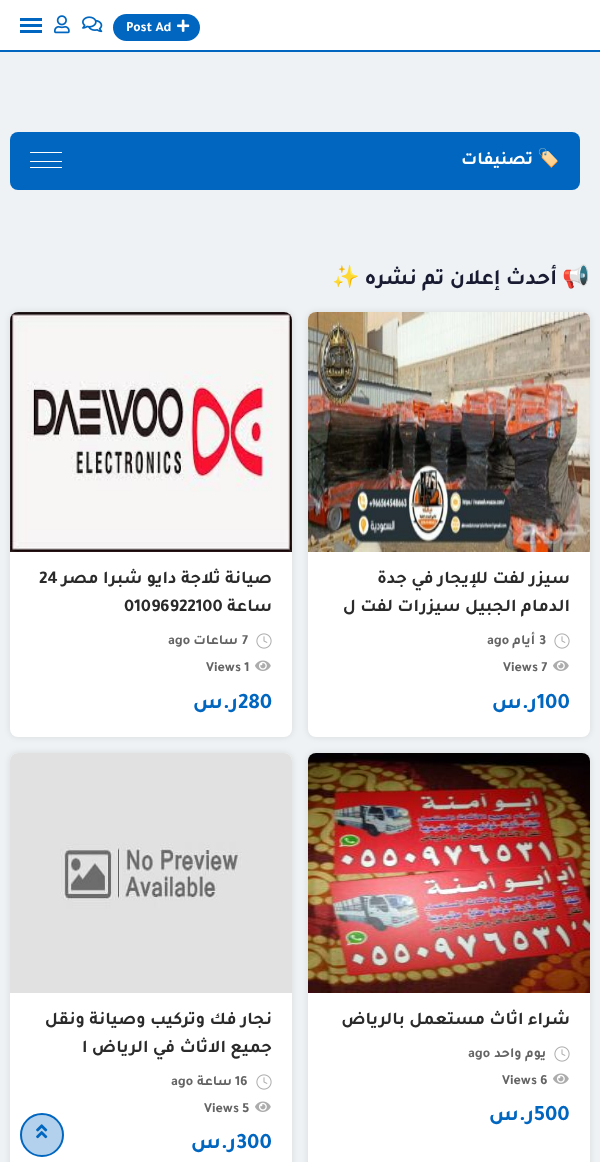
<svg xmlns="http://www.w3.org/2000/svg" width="600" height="1162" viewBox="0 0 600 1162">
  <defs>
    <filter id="blur1" x="-50%" y="-200%" width="200%" height="500%"><feGaussianBlur stdDeviation="3"/></filter>
  </defs>
  <rect width="100%" height="100%" fill="#ffffff"/>
  <rect x="0" y="50" width="600" height="2" fill="#0066bf"/>
  <rect x="113" y="14" width="87" height="27" rx="13.5" fill="#0066bf"/>
  <image x="177" y="19" width="13" height="13" href="img1.png"/>
  <text x="126" y="31" font-family="Tajawal" font-size="14" font-weight="bold" fill="#ffffff">Post Ad</text>
  <image x="82" y="16" width="21" height="17" href="img2.png"/>
  <image x="54" y="15" width="16" height="19" href="img3.png"/>
  <rect x="20" y="18" width="22" height="3" fill="#0066bf"/>
  <rect x="20" y="24" width="22" height="3" fill="#0066bf"/>
  <rect x="20" y="30" width="22" height="3" fill="#0066bf"/>
  <rect x="0" y="52" width="600" height="1110" fill="#eef2f4"/>
  <rect x="10" y="132" width="570" height="58" rx="8" fill="#0066bf"/>
  <text x="560" y="164" font-family="Noto Color Emoji" font-size="18" font-weight="bold" direction="rtl" fill="#ffffff">🏷️</text>
  <text x="533" y="164" font-family="Tajawal" font-size="18" font-weight="bold" direction="rtl" fill="#ffffff">تصنيفات</text>
  <rect x="30" y="152" width="32" height="1" fill="#ffffff"/>
  <rect x="30" y="161" width="32" height="1" fill="#ffffff"/>
  <rect x="30" y="167" width="32" height="1" fill="#ffffff"/>
  <text x="590" y="284" font-family="Noto Color Emoji" font-size="22" font-weight="bold" direction="rtl" fill="#181b31">📢</text>
  <text x="557" y="284" font-family="Tajawal" font-size="22" font-weight="bold" direction="rtl" fill="#181b31">أحدث إعلان تم نشره</text>
  <text x="360" y="284" font-family="Noto Color Emoji" font-size="22" font-weight="bold" direction="rtl" fill="#181b31">✨</text>
  <rect x="308" y="312" width="282" height="425" rx="8" fill="#000000" fill-opacity="0.1" filter="url(#blur1)"/>
  <rect x="308" y="312" width="282" height="425" rx="8" fill="#ffffff"/>
  <image x="308" y="312" width="282" height="240" href="img4.png"/>
  <text x="570" y="583" font-family="Tajawal" font-size="18" font-weight="bold" direction="rtl" fill="#2a2a2a">سيزر لفت للإيجار في جدة</text>
  <text x="570" y="611" font-family="Tajawal" font-size="18" font-weight="bold" direction="rtl" fill="#2a2a2a">الدمام الجبيل سيزرات لفت ل</text>
  <image x="554" y="633" width="16" height="16" href="img5.png"/>
  <text x="539" y="644" font-family="Tajawal" font-size="14" font-weight="bold" fill="#646464">3</text>
  <text x="535" y="644" font-family="Tajawal" font-size="14" font-weight="bold" direction="rtl" fill="#646464">أيام</text>
  <text x="487" y="644" font-family="Tajawal" font-size="14" font-weight="bold" fill="#646464">ago</text>
  <image x="553" y="660" width="16" height="11" href="img6.png"/>
  <text x="503" y="671" font-family="Tajawal" font-size="14" font-weight="bold" fill="#646464">Views 7</text>
  <text x="537" y="708" font-family="Tajawal" font-size="22" font-weight="bold" fill="#0066bf">100</text>
  <text x="537" y="708" font-family="Tajawal" font-size="22" font-weight="bold" direction="rtl" fill="#0066bf">ر.س</text>
  <rect x="10" y="312" width="282" height="425" rx="8" fill="#000000" fill-opacity="0.1" filter="url(#blur1)"/>
  <rect x="10" y="312" width="282" height="425" rx="8" fill="#ffffff"/>
  <image x="10" y="312" width="282" height="240" href="img7.png"/>
  <text x="272" y="583" font-family="Tajawal" font-size="18" font-weight="bold" direction="rtl" fill="#2a2a2a">صيانة ثلاجة دايو شبرا مصر</text>
  <text x="39" y="583" font-family="Tajawal" font-size="18" font-weight="bold" fill="#2a2a2a">24</text>
  <text x="272" y="611" font-family="Tajawal" font-size="18" font-weight="bold" direction="rtl" fill="#2a2a2a">ساعة</text>
  <text x="124" y="611" font-family="Tajawal" font-size="18" font-weight="bold" fill="#2a2a2a">01096922100</text>
  <image x="256" y="633" width="16" height="16" href="img5.png"/>
  <text x="242" y="644" font-family="Tajawal" font-size="14" font-weight="bold" fill="#646464">7</text>
  <text x="238" y="644" font-family="Tajawal" font-size="14" font-weight="bold" direction="rtl" fill="#646464">ساعات</text>
  <text x="168" y="644" font-family="Tajawal" font-size="14" font-weight="bold" fill="#646464">ago</text>
  <image x="255" y="660" width="16" height="11" href="img6.png"/>
  <text x="206" y="671" font-family="Tajawal" font-size="14" font-weight="bold" fill="#646464">Views 1</text>
  <text x="238" y="708" font-family="Tajawal" font-size="22" font-weight="bold" fill="#0066bf">280</text>
  <text x="238" y="708" font-family="Tajawal" font-size="22" font-weight="bold" direction="rtl" fill="#0066bf">ر.س</text>
  <rect x="308" y="753" width="282" height="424" rx="8" fill="#000000" fill-opacity="0.1" filter="url(#blur1)"/>
  <rect x="308" y="753" width="282" height="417" rx="8" fill="#ffffff"/>
  <image x="308" y="753" width="282" height="240" href="img8.png"/>
  <text x="570" y="1024" font-family="Tajawal" font-size="18" font-weight="bold" direction="rtl" fill="#2a2a2a">شراء اثاث مستعمل بالرياض</text>
  <image x="554" y="1046" width="16" height="16" href="img5.png"/>
  <text x="546" y="1057" font-family="Tajawal" font-size="14" font-weight="bold" direction="rtl" fill="#646464">يوم واحد</text>
  <text x="468" y="1057" font-family="Tajawal" font-size="14" font-weight="bold" fill="#646464">ago</text>
  <image x="553" y="1073" width="16" height="11" href="img6.png"/>
  <text x="502" y="1084" font-family="Tajawal" font-size="14" font-weight="bold" fill="#646464">Views 6</text>
  <text x="534" y="1120" font-family="Tajawal" font-size="22" font-weight="bold" fill="#0066bf">500</text>
  <text x="534" y="1120" font-family="Tajawal" font-size="22" font-weight="bold" direction="rtl" fill="#0066bf">ر.س</text>
  <rect x="10" y="753" width="282" height="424" rx="8" fill="#000000" fill-opacity="0.1" filter="url(#blur1)"/>
  <rect x="10" y="753" width="282" height="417" rx="8" fill="#ffffff"/>
  <image x="10" y="753" width="282" height="240" href="img9.png"/>
  <text x="272" y="1024" font-family="Tajawal" font-size="18" font-weight="bold" direction="rtl" fill="#2a2a2a">نجار فك وتركيب وصيانة ونقل</text>
  <text x="272" y="1052" font-family="Tajawal" font-size="18" font-weight="bold" direction="rtl" fill="#2a2a2a">جميع الاثاث في الرياض ا</text>
  <image x="256" y="1074" width="16" height="16" href="img5.png"/>
  <text x="235" y="1085" font-family="Tajawal" font-size="14" font-weight="bold" fill="#646464">16</text>
  <text x="232" y="1085" font-family="Tajawal" font-size="14" font-weight="bold" direction="rtl" fill="#646464">ساعة</text>
  <text x="171" y="1085" font-family="Tajawal" font-size="14" font-weight="bold" fill="#646464">ago</text>
  <image x="255" y="1101" width="16" height="11" href="img6.png"/>
  <text x="204" y="1112" font-family="Tajawal" font-size="14" font-weight="bold" fill="#646464">Views 5</text>
  <text x="236" y="1148" font-family="Tajawal" font-size="22" font-weight="bold" fill="#0066bf">300</text>
  <text x="236" y="1148" font-family="Tajawal" font-size="22" font-weight="bold" direction="rtl" fill="#0066bf">ر.س</text>
  <circle cx="42" cy="1135" r="21" fill="#b3d1ec" stroke="#0066bf" stroke-width="2"/>
  <image x="36" y="1124" width="12" height="15" href="img10.png"/>
</svg>
